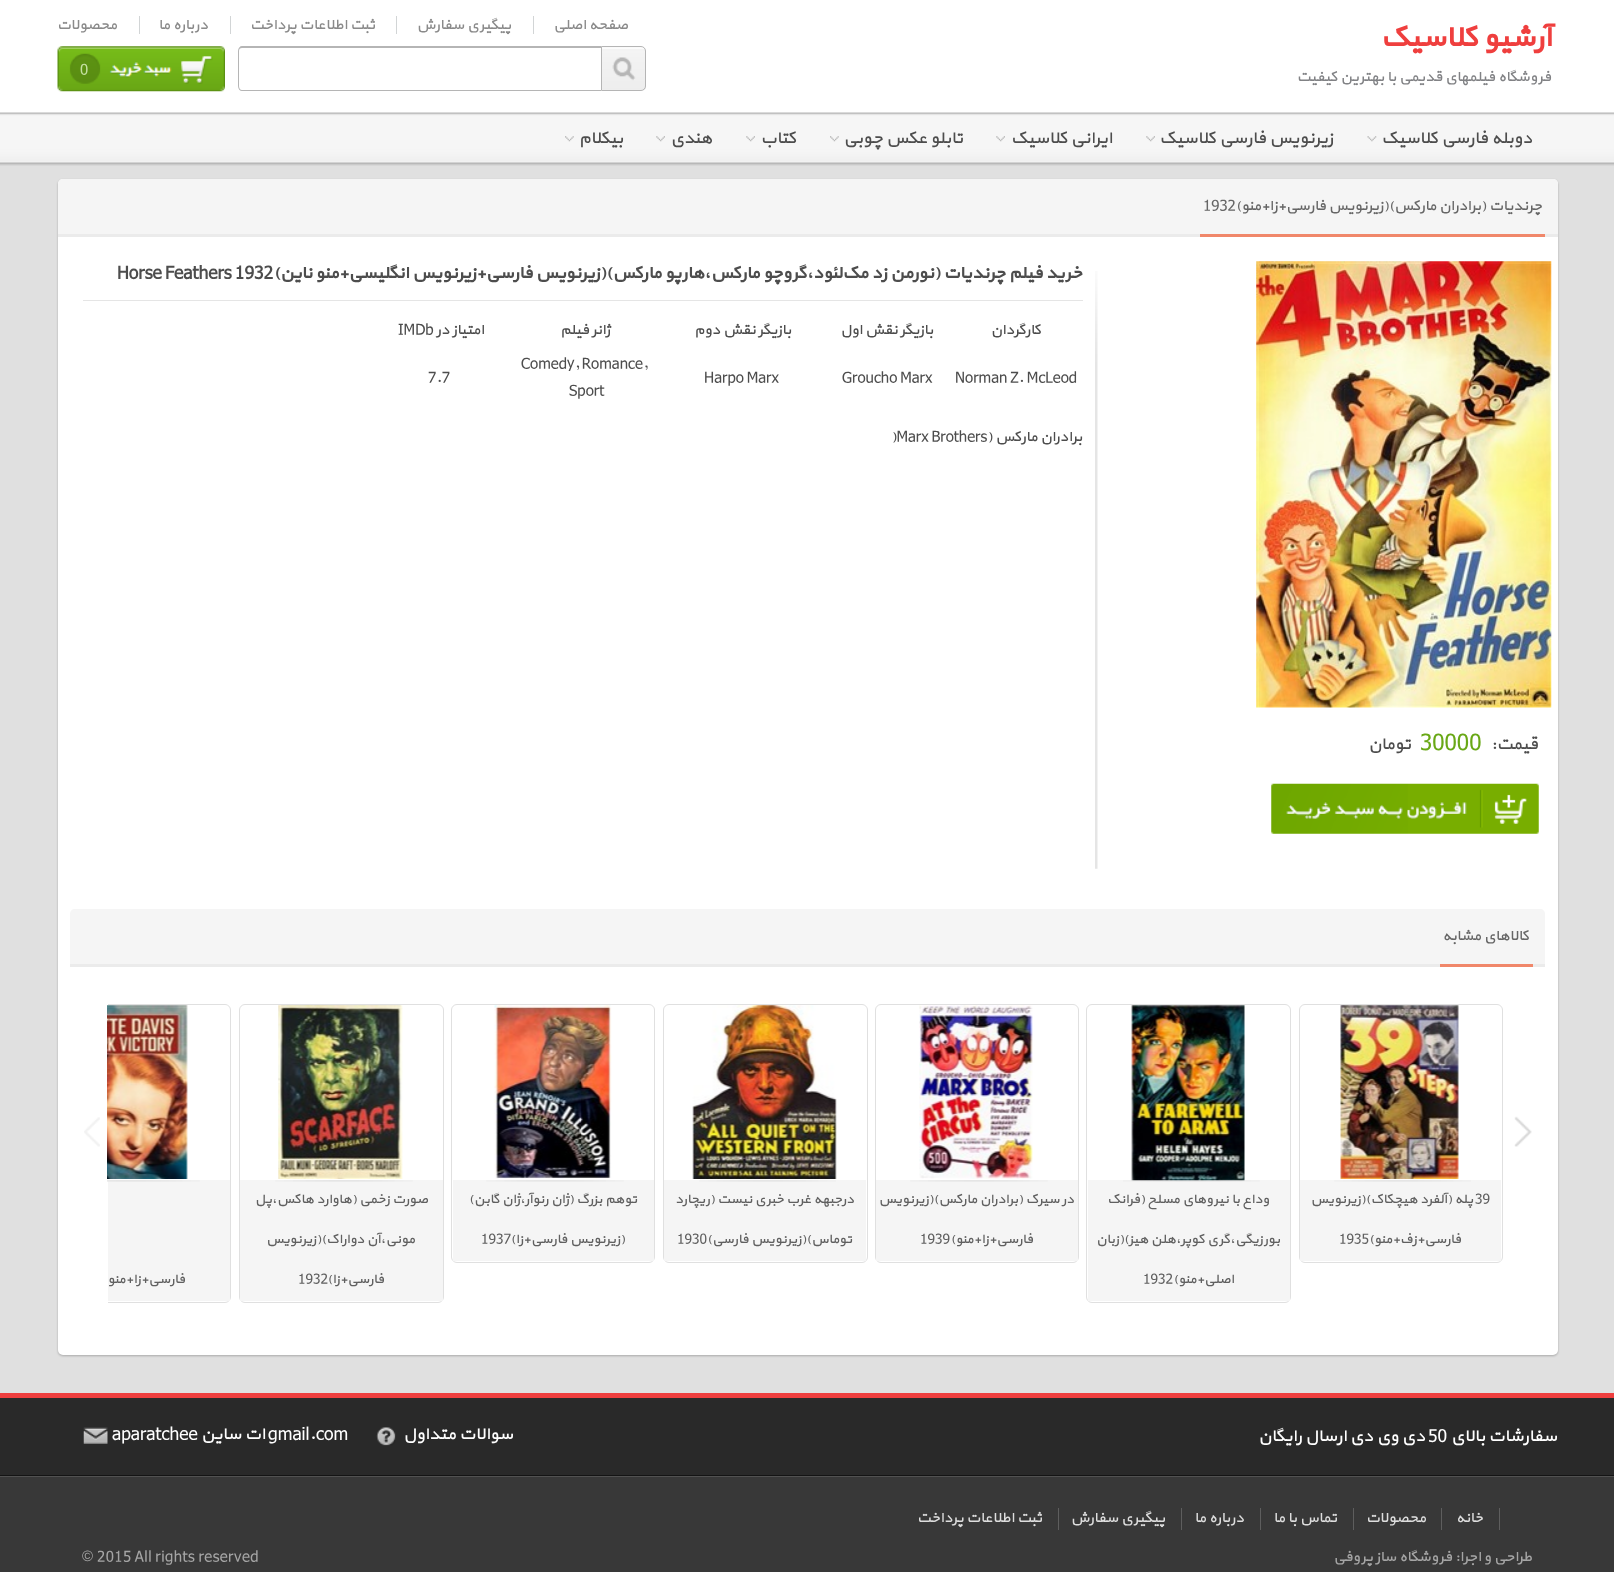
<svg xmlns="http://www.w3.org/2000/svg" width="1614" height="1572" viewBox="0 0 1614 1572">
  <defs>
    <filter id="blur1" x="-50%" y="-200%" width="200%" height="500%"><feGaussianBlur stdDeviation="1"/></filter>
    <clipPath id="clip1"><rect x="108" y="1004" width="1400" height="299"/></clipPath>
  </defs>
  <rect width="100%" height="100%" fill="#e0e0e0"/>
  <rect x="0" y="0" width="1614" height="113" fill="#ffffff"/>
  <text x="1551" y="46" font-family="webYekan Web" font-size="30" font-weight="bold" direction="rtl" fill="#ef3f3e">آرشیو کلاسیک</text>
  <text x="1551" y="81" font-family="webYekan Web" font-size="15" direction="rtl" fill="#818285">فروشگاه فیلمهای قدیمی با بهترین کیفیت</text>
  <rect x="533" y="16" width="1" height="18" fill="#d2d5d6"/>
  <text x="628" y="29" font-family="webYekan Web" font-size="15" direction="rtl" fill="#8a8a8a">صفحه اصلی</text>
  <rect x="396" y="16" width="1" height="18" fill="#d2d5d6"/>
  <text x="511" y="29" font-family="webYekan Web" font-size="15" direction="rtl" fill="#8a8a8a">پیگیری سفارش</text>
  <rect x="230" y="16" width="1" height="18" fill="#d2d5d6"/>
  <text x="375" y="29" font-family="webYekan Web" font-size="15" direction="rtl" fill="#8a8a8a">ثبت اطلاعات پرداخت</text>
  <rect x="139" y="16" width="1" height="18" fill="#d2d5d6"/>
  <text x="208" y="29" font-family="webYekan Web" font-size="15" direction="rtl" fill="#8a8a8a">درباره ما</text>
  <text x="117" y="29" font-family="webYekan Web" font-size="15" direction="rtl" fill="#8a8a8a">محصولات</text>
  <image x="602" y="47" width="44" height="44" href="img1.png"/>
  <path d="M601.5 46.5H641C643.5 46.5 645.5 48.5 645.5 51V86C645.5 88.5 643.5 90.5 641 90.5H601.5Z" fill="none" stroke="#b5b5b5"/>
  <path d="M242 46H601V91H242C240 91 238 89 238 86V51C238 48 240 46 242 46ZM242 48H601V90H242C240 90 239 88 239 86V51C239 49 240 48 242 48Z" fill="#b5b5b5" fill-rule="evenodd"/>
  <image x="57" y="46" width="168" height="46" href="img2.png"/>
  <text x="80" y="74" font-family="webYekan Web" font-size="15" fill="#c5dfa2">0</text>
  <image x="0" y="112" width="1614" height="54" href="img3.png"/>
  <text x="1532" y="143" font-family="webYekan Web" font-size="17.5" direction="rtl" fill="#4d4d4d">دوبله فارسی کلاسیک</text>
  <image x="1367" y="136" width="10" height="6" href="img4.png"/>
  <text x="1333" y="143" font-family="webYekan Web" font-size="17.5" direction="rtl" fill="#4d4d4d">زیرنویس فارسی کلاسیک</text>
  <image x="1146" y="136" width="9" height="6" href="img5.png"/>
  <text x="1112" y="143" font-family="webYekan Web" font-size="17.5" direction="rtl" fill="#4d4d4d">ایرانی کلاسیک</text>
  <image x="996" y="136" width="9" height="6" href="img5.png"/>
  <text x="963" y="143" font-family="webYekan Web" font-size="17.5" direction="rtl" fill="#4d4d4d">تابلو عکس چوبی</text>
  <image x="830" y="136" width="9" height="6" href="img6.png"/>
  <text x="796" y="143" font-family="webYekan Web" font-size="17.5" direction="rtl" fill="#4d4d4d">کتاب</text>
  <image x="746" y="136" width="9" height="6" href="img5.png"/>
  <text x="712" y="143" font-family="webYekan Web" font-size="17.5" direction="rtl" fill="#4d4d4d">هندی</text>
  <image x="656" y="136" width="9" height="6" href="img5.png"/>
  <text x="623" y="143" font-family="webYekan Web" font-size="17.5" direction="rtl" fill="#4d4d4d">بیکلام</text>
  <image x="565" y="136" width="9" height="6" href="img6.png"/>
  <rect x="58" y="180" width="1500" height="1176" rx="5" fill="#000000" fill-opacity="0.25" filter="url(#blur1)"/>
  <rect x="58" y="179" width="1500" height="1176" rx="5" fill="#ffffff"/>
  <path d="M63 179H1553C1556 179 1558 181 1558 184V236H58V184C58 181 60 179 63 179Z" fill="#f5f5f5"/>
  <rect x="58" y="234" width="1500" height="3" fill="#ebebeb"/>
  <rect x="1200" y="234" width="345" height="3" fill="#f0876a"/>
  <text x="1542" y="210" font-family="webYekan Web" font-size="15" direction="rtl" fill="#666666">چرندیات (برادران مارکس)(زیرنویس فارسی+زا+منو)</text>
  <text x="1203" y="210" font-family="webYekan Web" font-size="15" fill="#666666">1932</text>
  <rect x="83" y="300" width="1000" height="1" fill="#e5e5e5"/>
  <text x="1082" y="278" font-family="webYekan Web" font-size="17.55" font-weight="bold" direction="rtl" fill="#4d4d4d">خرید فیلم چرندیات (نورمن زد مک‌لئود،گروچو مارکس،هارپو مارکس)(زیرنویس فارسی+زیرنویس انگلیسی+منو ناین)</text>
  <text x="117" y="278" font-family="webYekan Web" font-size="17.55" font-weight="bold" fill="#4d4d4d">Horse Feathers 1932</text>
  <text x="1041" y="334" font-family="webYekan Web" font-size="15" direction="rtl" fill="#4d4d4d">کارگردان</text>
  <text x="933" y="334" font-family="webYekan Web" font-size="15" direction="rtl" fill="#4d4d4d">بازیگر نقش اول</text>
  <text x="791" y="334" font-family="webYekan Web" font-size="15" direction="rtl" fill="#4d4d4d">بازیگر نقش دوم</text>
  <text x="610" y="334" font-family="webYekan Web" font-size="15" direction="rtl" fill="#4d4d4d">ژانر فیلم</text>
  <text x="484" y="334" font-family="webYekan Web" font-size="15" direction="rtl" fill="#4d4d4d">امتیاز در</text>
  <text x="398" y="334" font-family="webYekan Web" font-size="15" fill="#4d4d4d">IMDb</text>
  <text x="955" y="382" font-family="webYekan Web" font-size="15" fill="#4d4d4d">Norman Z. McLeod</text>
  <text x="842" y="382" font-family="webYekan Web" font-size="15" fill="#4d4d4d">Groucho Marx</text>
  <text x="704" y="382" font-family="webYekan Web" font-size="15" fill="#4d4d4d">Harpo Marx</text>
  <text x="521" y="368" font-family="webYekan Web" font-size="15" fill="#4d4d4d">Comedy, Romance,</text>
  <text x="569" y="395" font-family="webYekan Web" font-size="15" fill="#4d4d4d">Sport</text>
  <text x="428" y="382" font-family="webYekan Web" font-size="15" fill="#4d4d4d">7.7</text>
  <text x="1082" y="441" font-family="webYekan Web" font-size="15" direction="rtl" fill="#4d4d4d">برادران مارکس (</text>
  <text x="891" y="441" font-family="webYekan Web" font-size="15" fill="#4d4d4d">)Marx Brothers</text>
  <image x="1095" y="271" width="3" height="598" href="img7.png"/>
  <image x="1256" y="261" width="296" height="447" href="img8.png"/>
  <text x="1538" y="749" font-family="webYekan Web" font-size="17.5" direction="rtl" fill="#4d4d4d">قیمت:</text>
  <text x="1420" y="749" font-family="webYekan Web" font-size="22.5" fill="#69a816">30000</text>
  <text x="1411" y="749" font-family="webYekan Web" font-size="17.5" direction="rtl" fill="#4d4d4d">تومان</text>
  <image x="1271" y="783" width="268" height="51" href="img9.png"/>
  <path d="M75 909H1540C1543 909 1545 911 1545 914V966H70V914C70 911 72 909 75 909Z" fill="#f5f5f5"/>
  <rect x="70" y="964" width="1475" height="3" fill="#ebebeb"/>
  <rect x="1440" y="964" width="93" height="3" fill="#f0876a"/>
  <text x="1529" y="940" font-family="webYekan Web" font-size="15" direction="rtl" fill="#666666">کالاهای مشابه</text>
  <image x="1514" y="1116" width="18" height="31" href="img10.png"/>
  <g clip-path="url(#clip1)">
    <rect x="28.5" y="1004.5" width="202" height="298" rx="5.5" fill="none" stroke="#e0e0e0"/>
  </g>
  <image x="84" y="1117" width="16" height="30" href="img11.png"/>
  <rect x="1299.5" y="1004.5" width="203" height="258" rx="5.5" fill="none" stroke="#e0e0e0"/>
  <image x="1340" y="1005" width="119" height="174" href="img12.png"/>
  <rect x="1300" y="1180" width="201" height="81" fill="#f5f5f5"/>
  <image x="1334" y="1180" width="137" height="2" href="img13.png"/>
  <text x="1475" y="1203" font-family="webYekan Web" font-size="13.75" fill="#606060">39</text>
  <text x="1473" y="1203" font-family="webYekan Web" font-size="13.75" direction="rtl" fill="#606060">پله (آلفرد هیچکاک)(زیرنویس</text>
  <text x="1461" y="1243" font-family="webYekan Web" font-size="13.75" direction="rtl" fill="#606060">فارسی+زف+منو)</text>
  <text x="1339" y="1243" font-family="webYekan Web" font-size="13.75" fill="#606060">1935</text>
  <rect x="1086.5" y="1004.5" width="204" height="298" rx="5.5" fill="none" stroke="#e0e0e0"/>
  <rect x="1088" y="1180" width="202" height="121" fill="#f5f5f5"/>
  <image x="1123" y="1180" width="137" height="2" href="img15.png"/>
  <image x="1131" y="1005" width="114" height="176" href="img14.png"/>
  <text x="1269" y="1203" font-family="webYekan Web" font-size="13.75" direction="rtl" fill="#606060">وداع با نیروهای مسلح (فرانک</text>
  <text x="1280" y="1243" font-family="webYekan Web" font-size="13.75" direction="rtl" fill="#606060">بورزیگی،گری کوپر،هلن هیز)(زبان</text>
  <text x="1234" y="1283" font-family="webYekan Web" font-size="13.75" direction="rtl" fill="#606060">اصلی+منو)</text>
  <text x="1143" y="1283" font-family="webYekan Web" font-size="13.75" fill="#606060">1932</text>
  <rect x="875.5" y="1004.5" width="203" height="258" rx="5.5" fill="none" stroke="#e0e0e0"/>
  <image x="919" y="1005" width="114" height="174" href="img16.png"/>
  <rect x="876" y="1180" width="202" height="81" fill="#f5f5f5"/>
  <image x="910" y="1180" width="138" height="2" href="img17.png"/>
  <text x="1074" y="1203" font-family="webYekan Web" font-size="13.75" direction="rtl" fill="#606060">در سیرک (برادران مارکس)(زیرنویس</text>
  <text x="1033" y="1243" font-family="webYekan Web" font-size="13.75" direction="rtl" fill="#606060">فارسی+زا+منو)</text>
  <text x="920" y="1243" font-family="webYekan Web" font-size="13.75" fill="#606060">1939</text>
  <rect x="663.5" y="1004.5" width="204" height="258" rx="5.5" fill="none" stroke="#e0e0e0"/>
  <image x="692" y="1005" width="145" height="174" href="img18.png"/>
  <rect x="664" y="1180" width="202" height="81" fill="#f5f5f5"/>
  <image x="699" y="1180" width="137" height="2" href="img13.png"/>
  <text x="854" y="1203" font-family="webYekan Web" font-size="13.75" direction="rtl" fill="#606060">درجبهه غرب خبری نیست (ریچارد</text>
  <text x="852" y="1243" font-family="webYekan Web" font-size="13.75" direction="rtl" fill="#606060">توماس)(زیرنویس فارسی)</text>
  <text x="677" y="1243" font-family="webYekan Web" font-size="13.75" fill="#606060">1930</text>
  <rect x="451.5" y="1004.5" width="203" height="258" rx="5.5" fill="none" stroke="#e0e0e0"/>
  <image x="494" y="1005" width="118" height="174" href="img19.png"/>
  <rect x="453" y="1180" width="201" height="81" fill="#f5f5f5"/>
  <image x="486" y="1180" width="138" height="2" href="img20.png"/>
  <text x="637" y="1203" font-family="webYekan Web" font-size="13.75" direction="rtl" fill="#606060">توهم بزرگ (ژان رنوآر،ژان گابن)</text>
  <text x="625" y="1243" font-family="webYekan Web" font-size="13.75" direction="rtl" fill="#606060">(زیرنویس فارسی+زا)</text>
  <text x="481" y="1243" font-family="webYekan Web" font-size="13.75" fill="#606060">1937</text>
  <rect x="239.5" y="1004.5" width="204" height="298" rx="5.5" fill="none" stroke="#e0e0e0"/>
  <image x="278" y="1005" width="125" height="174" href="img21.png"/>
  <rect x="240" y="1180" width="203" height="121" fill="#f5f5f5"/>
  <image x="275" y="1180" width="138" height="2" href="img17.png"/>
  <text x="428" y="1203" font-family="webYekan Web" font-size="13.75" direction="rtl" fill="#606060">صورت زخمی (هاوارد هاکس،پل</text>
  <text x="415" y="1243" font-family="webYekan Web" font-size="13.75" direction="rtl" fill="#606060">مونی،آن دواراک)(زیرنویس</text>
  <text x="384" y="1283" font-family="webYekan Web" font-size="13.75" direction="rtl" fill="#606060">فارسی+زا)</text>
  <text x="298" y="1283" font-family="webYekan Web" font-size="13.75" fill="#606060">1932</text>
  <image x="107" y="1005" width="81" height="174" href="img22.png"/>
  <rect x="108" y="1180" width="122" height="121" fill="#f5f5f5"/>
  <image x="107" y="1180" width="93" height="2" href="img23.png"/>
  <g clip-path="url(#clip1)">
    <text x="185" y="1283" font-family="webYekan Web" font-size="13.75" direction="rtl" fill="#606060">فارسی+زا+منو)</text>
  </g>
  <rect x="0" y="1393" width="1614" height="5" fill="#ee3e3e"/>
  <rect x="0" y="1398" width="1614" height="77" fill="#292929"/>
  <rect x="0" y="1475" width="1614" height="1" fill="#141414"/>
  <text x="1557" y="1441" font-family="webYekan Web" font-size="17.5" direction="rtl" fill="#ffffff">سفارشات بالای</text>
  <text x="1428" y="1441" font-family="webYekan Web" font-size="17.5" fill="#ffffff">50</text>
  <text x="1425" y="1441" font-family="webYekan Web" font-size="17.5" direction="rtl" fill="#ffffff">دی وی دی ارسال رایگان</text>
  <image x="376" y="1427" width="20" height="19" href="img24.png"/>
  <text x="513" y="1439" font-family="webYekan Web" font-size="17.5" direction="rtl" fill="#ffffff">سوالات متداول</text>
  <image x="83" y="1427" width="25" height="17" href="img25.png"/>
  <text x="268" y="1439" font-family="webYekan Web" font-size="17.5" fill="#ffffff">gmail.com</text>
  <text x="265" y="1439" font-family="webYekan Web" font-size="17.5" direction="rtl" fill="#ffffff">ات ساین</text>
  <text x="112" y="1439" font-family="webYekan Web" font-size="17.5" fill="#ffffff">aparatchee</text>
  <rect x="0" y="1477" width="1614" height="95" fill="#383838"/>
  <rect x="0" y="1476" width="1614" height="1" fill="#515151"/>
  <rect x="1499" y="1508" width="1" height="22" fill="#5e5e5e"/>
  <text x="1483" y="1522" font-family="webYekan Web" font-size="15" direction="rtl" fill="#dddddd">خانه</text>
  <rect x="1441" y="1508" width="1" height="22" fill="#5e5e5e"/>
  <text x="1426" y="1522" font-family="webYekan Web" font-size="15" direction="rtl" fill="#dddddd">محصولات</text>
  <rect x="1353" y="1508" width="1" height="22" fill="#5e5e5e"/>
  <text x="1337" y="1522" font-family="webYekan Web" font-size="15" direction="rtl" fill="#dddddd">تماس با ما</text>
  <rect x="1260" y="1508" width="1" height="22" fill="#5e5e5e"/>
  <text x="1244" y="1522" font-family="webYekan Web" font-size="15" direction="rtl" fill="#dddddd">درباره ما</text>
  <rect x="1181" y="1508" width="1" height="22" fill="#5e5e5e"/>
  <text x="1165" y="1522" font-family="webYekan Web" font-size="15" direction="rtl" fill="#dddddd">پیگیری سفارش</text>
  <rect x="1058" y="1508" width="1" height="22" fill="#5e5e5e"/>
  <text x="1042" y="1522" font-family="webYekan Web" font-size="15" direction="rtl" fill="#dddddd">ثبت اطلاعات پرداخت</text>
  <text x="1532" y="1561" font-family="webYekan Web" font-size="15" direction="rtl" fill="#a5a5a5">طراحی و اجرا:</text>
  <text x="1452" y="1561" font-family="webYekan Web" font-size="15" direction="rtl" fill="#a5a5a5">فروشگاه ساز پروفی</text>
  <text x="97" y="1561" font-family="webYekan Web" font-size="15" letter-spacing="0.45" fill="#a5a5a5">2015 All rights reserved</text>
  <text x="82" y="1561" font-family="Liberation Sans" font-size="15" letter-spacing="0.45" fill="#a5a5a5">©</text>
</svg>
